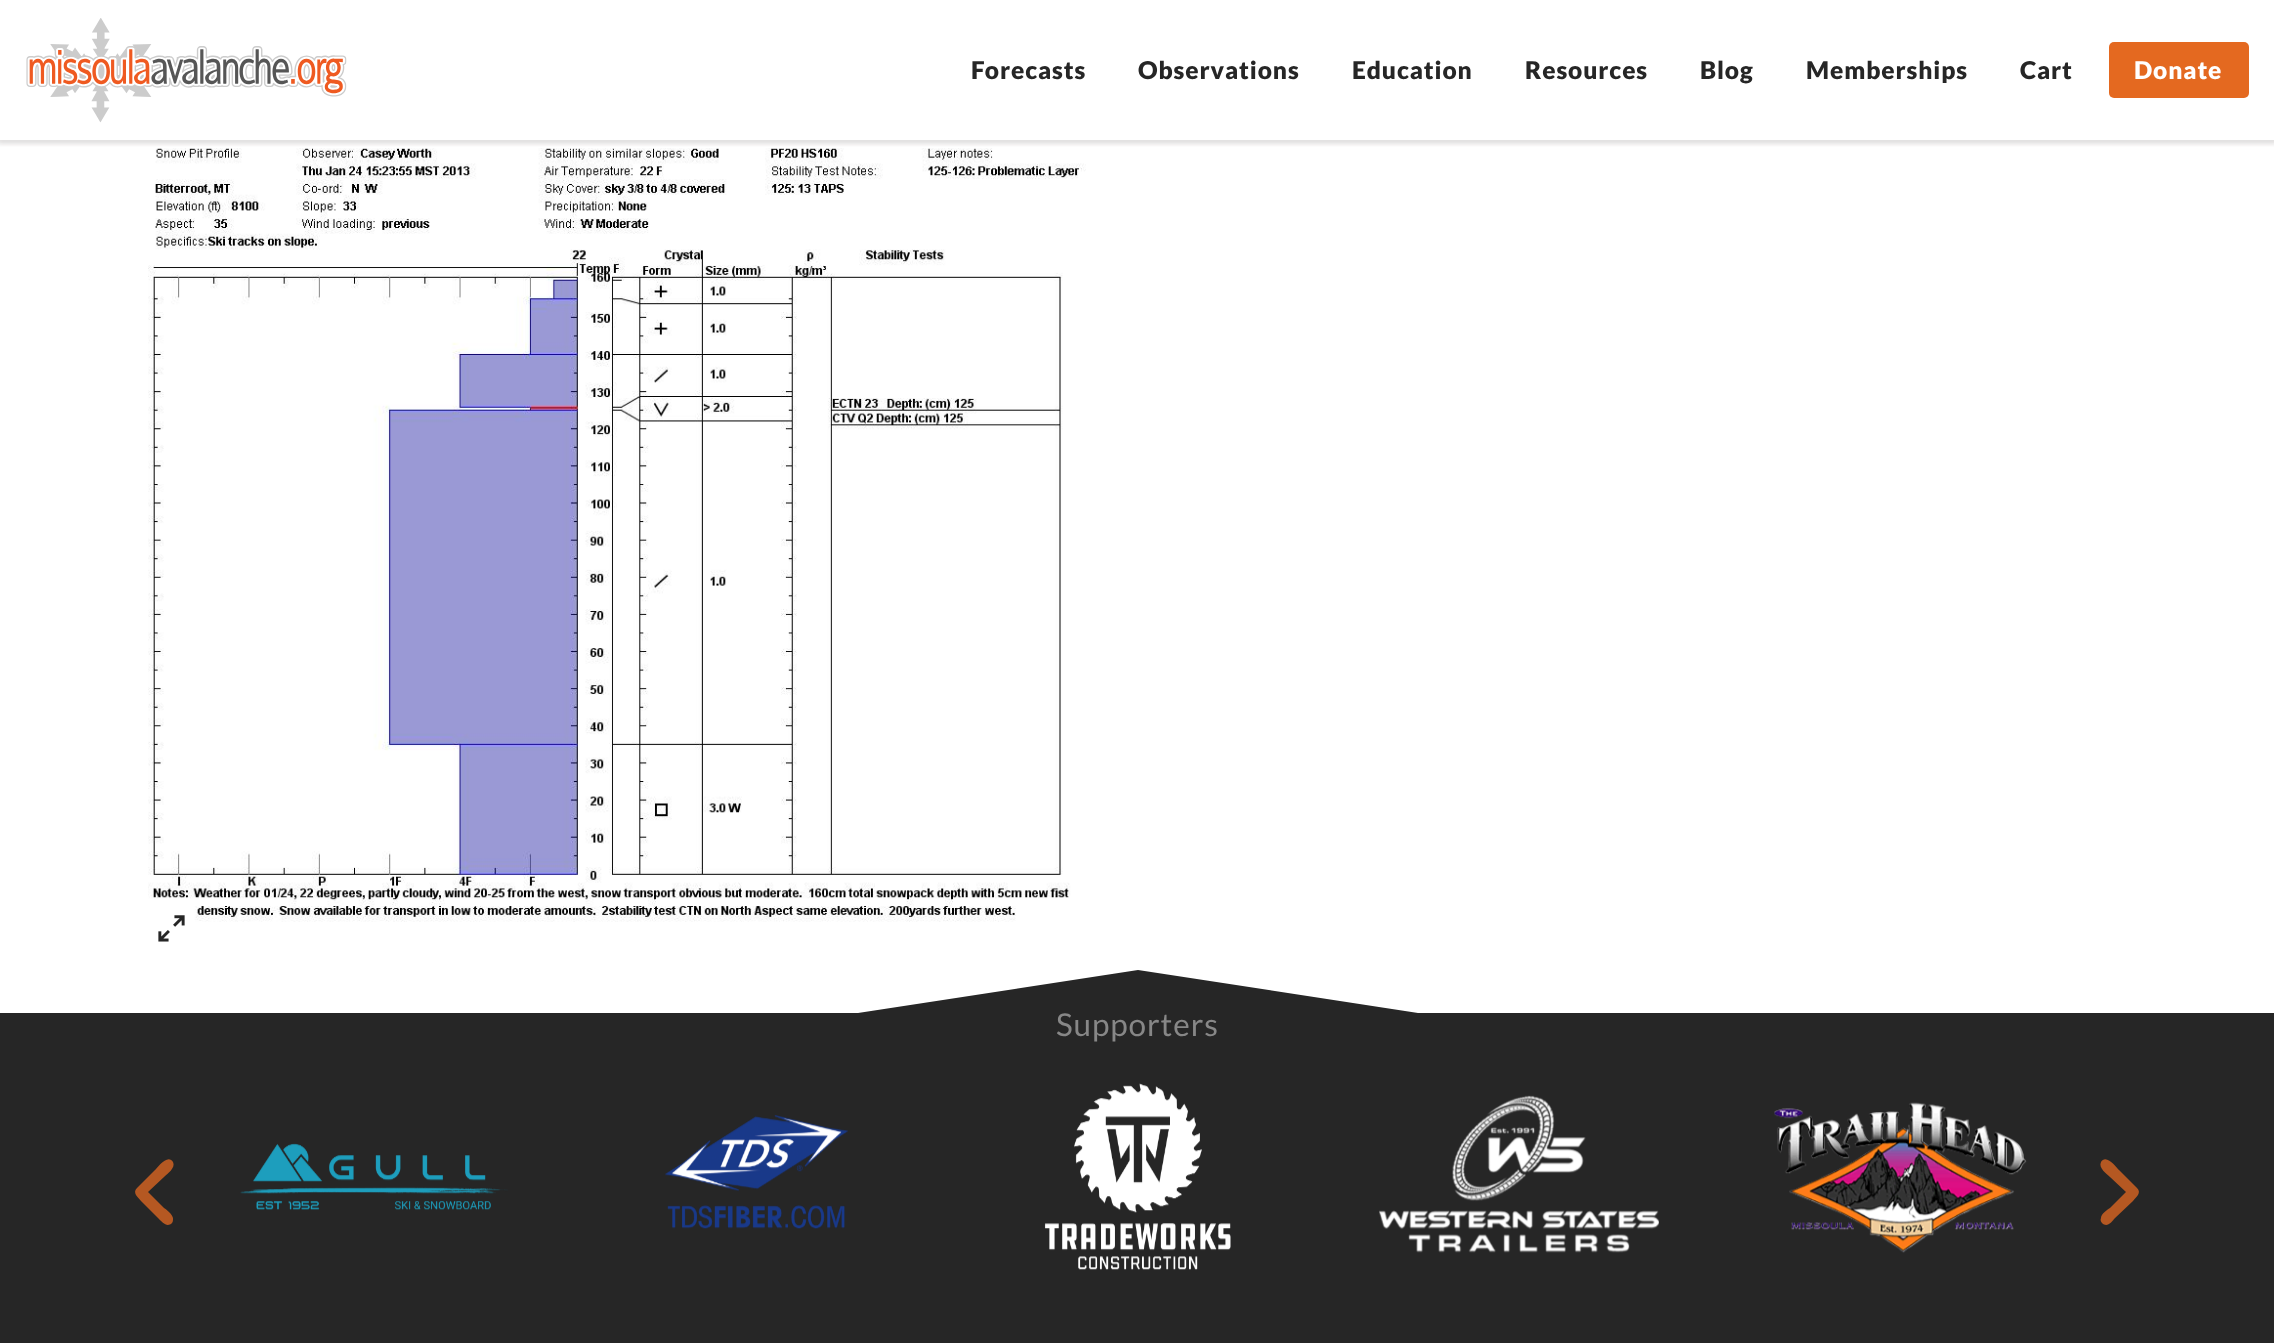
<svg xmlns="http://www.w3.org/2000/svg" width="2274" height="1343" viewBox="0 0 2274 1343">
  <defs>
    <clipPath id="clip1"><rect x="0" y="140" width="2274" height="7"/></clipPath>
    <filter id="blur1" x="-50%" y="-200%" width="200%" height="500%"><feGaussianBlur stdDeviation="2"/></filter>
  </defs>
  <rect width="100%" height="100%" fill="#ffffff"/>
  <image x="148" y="148" width="938" height="774" href="img2.png"/>
  <g clip-path="url(#clip1)">
    <rect x="-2" y="0" width="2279" height="144" fill="#6b655f" fill-opacity="0.2" filter="url(#blur1)"/>
  </g>
  <image x="26" y="18" width="321" height="105" href="img1.png"/>
  <text x="971" y="79" font-family="Lato" font-size="24.5" font-weight="900" letter-spacing="0.9" fill="#262626">Forecasts</text>
  <text x="1138" y="79" font-family="Lato" font-size="24.5" font-weight="900" letter-spacing="0.9" fill="#262626">Observations</text>
  <text x="1352" y="79" font-family="Lato" font-size="24.5" font-weight="900" letter-spacing="0.9" fill="#262626">Education</text>
  <text x="1525" y="79" font-family="Lato" font-size="24.5" font-weight="900" letter-spacing="0.9" fill="#262626">Resources</text>
  <text x="1700" y="79" font-family="Lato" font-size="24.5" font-weight="900" letter-spacing="0.9" fill="#262626">Blog</text>
  <text x="1806" y="79" font-family="Lato" font-size="24.5" font-weight="900" letter-spacing="0.9" fill="#262626">Memberships</text>
  <text x="2020" y="79" font-family="Lato" font-size="24.5" font-weight="900" letter-spacing="0.9" fill="#262626">Cart</text>
  <rect x="2109" y="42" width="140" height="56" rx="5" fill="#e46920"/>
  <text x="2134" y="79" font-family="Lato" font-size="24.5" font-weight="900" letter-spacing="0.9" fill="#ffffff">Donate</text>
  <image x="158" y="915" width="27" height="27" href="img3.png"/>
  <rect x="0" y="1013" width="2274" height="330" fill="#262626"/>
  <path d="M1418 1013H858L1138 970Z" fill="#262626"/>
  <text x="1056" y="1036" font-family="Lato" font-size="31.5" letter-spacing="0.9" fill="#878787">Supporters</text>
  <path d="M137 1188C132 1193 138 1197 141 1201L159 1219C162 1222 167 1228 172 1223C173 1222 173 1220 173 1218C172 1214 167 1210 164 1208L148 1192L164 1177C167 1174 176 1168 173 1162C168 1153 157 1168 155 1170Z" fill="#b55822"/>
  <image x="240" y="1143" width="268" height="67" href="img4.png"/>
  <image x="665" y="1115" width="183" height="114" href="img5.png"/>
  <image x="1044" y="1083" width="187" height="187" href="img6.png"/>
  <image x="1379" y="1095" width="280" height="158" href="img7.png"/>
  <image x="1774" y="1102" width="253" height="151" href="img8.png"/>
  <path d="M2137 1188C2142 1193 2136 1197 2133 1201L2114 1219C2112 1222 2107 1228 2102 1223C2101 1222 2100 1220 2101 1218C2101 1214 2107 1210 2110 1208L2126 1192L2110 1177C2107 1174 2098 1168 2101 1162C2106 1153 2117 1168 2119 1170Z" fill="#b55822"/>
</svg>
